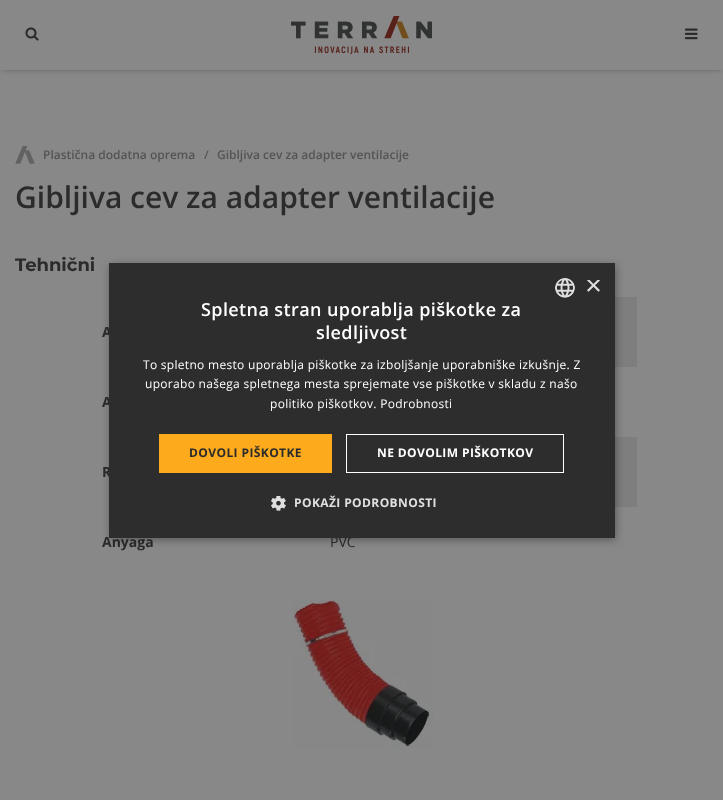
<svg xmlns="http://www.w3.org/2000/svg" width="723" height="800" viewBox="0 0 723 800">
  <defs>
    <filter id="blur1" x="-50%" y="-200%" width="200%" height="500%"><feGaussianBlur stdDeviation="2"/></filter>
    <linearGradient id="g1" gradientUnits="userSpaceOnUse" x1="0" y1="400" x2="723" y2="400"><stop offset="0.15" stop-color="#888888"/><stop offset="1" stop-color="#7c7c7c"/></linearGradient>
    <filter id="blur2" x="-50%" y="-200%" width="200%" height="500%"><feGaussianBlur stdDeviation="4"/></filter>
    <clipPath id="clip1"><rect x="585" y="280" width="15" height="15"/></clipPath>
  </defs>
  <rect width="100%" height="100%" fill="#888888"/>
  <rect x="0" y="1" width="723" height="70" rx="5" fill="#090909" fill-opacity="0.2" filter="url(#blur1)"/>
  <rect x="0" y="0" width="723" height="70" fill="#888888"/>
  <image x="25" y="27" width="14" height="14" href="img1.png"/>
  <image x="291" y="16" width="141" height="38" href="img2.png"/>
  <image x="684" y="28" width="14" height="12" href="img3.png"/>
  <image x="15" y="146" width="20" height="18" href="img4.png"/>
  <text x="43" y="159" font-family="Open Sans" font-size="12" font-weight="600" fill="#545454">Plastična dodatna oprema</text>
  <text x="204" y="159" font-family="Open Sans" font-size="12" font-weight="600" fill="#545454">/</text>
  <text x="217" y="159" font-family="Open Sans" font-size="12" font-weight="600" fill="#545454">Gibljiva cev za adapter ventilacije</text>
  <text x="15" y="208" font-family="Open Sans" font-size="30" font-weight="600" fill="#2b2b2b">Gibljiva cev za adapter ventilacije</text>
  <text x="15" y="271" font-family="Montserrat" font-size="18" font-weight="bold" fill="#2b2b2b">Tehnični</text>
  <rect x="236" y="297" width="401" height="70" fill="url(#g1)"/>
  <text x="102" y="337" font-family="Open Sans" font-size="14" font-weight="bold" fill="#2b2b2b">A</text>
  <text x="102" y="407" font-family="Open Sans" font-size="14" font-weight="bold" fill="#2b2b2b">A</text>
  <rect x="236" y="437" width="401" height="70" fill="url(#g1)"/>
  <text x="102" y="477" font-family="Open Sans" font-size="14" font-weight="bold" fill="#2b2b2b">R</text>
  <text x="102" y="547" font-family="Open Sans" font-size="14" font-weight="bold" fill="#2b2b2b">Anyaga</text>
  <text x="330" y="547" font-family="Open Sans" font-size="14" fill="#2b2b2b">PVC</text>
  <image x="293" y="600" width="141" height="149" href="img5.png"/>
  <rect x="110" y="265" width="506" height="275" fill="#000000" fill-opacity="0.35" filter="url(#blur2)"/>
  <rect x="109" y="263" width="506" height="275" fill="#2d2d2d"/>
  <image x="555" y="278" width="20" height="20" href="img6.png"/>
  <g clip-path="url(#clip1)">
    <text x="585" y="295" font-family="Liberation Sans" font-size="29" fill="#e0e0e0">×</text>
  </g>
  <text x="201" y="316" font-family="Open Sans" font-size="18" font-weight="600" letter-spacing="0.4" fill="#ffffff">Spletna stran uporablja piškotke za</text>
  <text x="316" y="339" font-family="Open Sans" font-size="18" font-weight="600" letter-spacing="0.4" fill="#ffffff">sledljivost</text>
  <text x="143" y="369" font-family="Open Sans" font-size="12" letter-spacing="0.3" fill="#ffffff">To spletno mesto uporablja piškotke za izboljšanje uporabniške izkušnje. Z</text>
  <text x="145" y="388" font-family="Open Sans" font-size="12" letter-spacing="0.3" fill="#ffffff">uporabo našega spletnega mesta sprejemate vse piškotke v skladu z našo</text>
  <text x="270" y="408" font-family="Open Sans" font-size="12" letter-spacing="0.3" fill="#ffffff">politiko piškotkov. Podrobnosti</text>
  <rect x="159" y="434" width="173" height="39" fill="#fdab1c"/>
  <text x="189" y="457" font-family="Open Sans" font-size="12" font-weight="bold" letter-spacing="0.4" fill="#2b2b2b">DOVOLI PIŠKOTKE</text>
  <rect x="346.5" y="434.5" width="217" height="38" fill="none" stroke="#ffffff"/>
  <text x="377" y="457" font-family="Open Sans" font-size="12" font-weight="bold" letter-spacing="0.4" fill="#ffffff">NE DOVOLIM PIŠKOTKOV</text>
  <image x="271" y="496" width="15" height="15" href="img7.png"/>
  <text x="294" y="507" font-family="Open Sans" font-size="12" font-weight="bold" letter-spacing="0.4" fill="#e0e0e0">POKAŽI PODROBNOSTI</text>
</svg>
